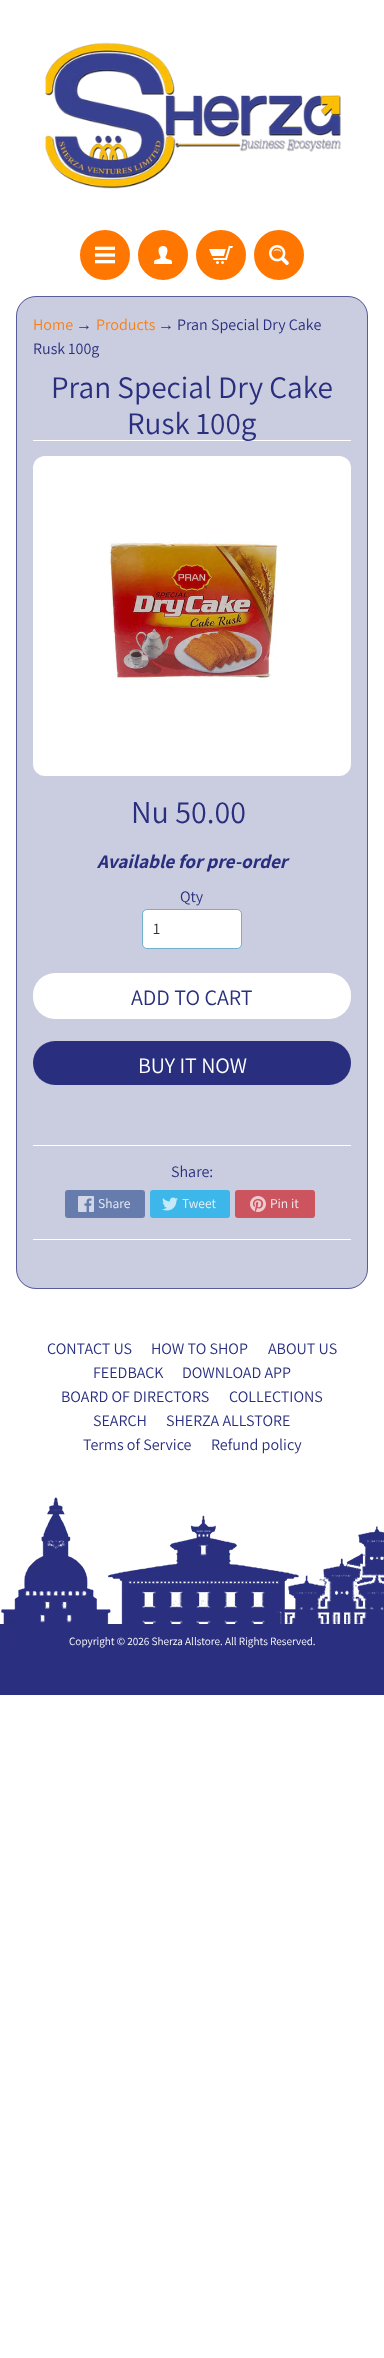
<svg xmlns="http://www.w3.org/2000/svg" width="384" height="2358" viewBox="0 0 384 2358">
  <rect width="100%" height="100%" fill="#ffffff"/>
  <image x="45" y="42" width="296" height="147" href="img1.png"/>
  <circle cx="105" cy="255" r="23.5" fill="#ff7700" stroke="#ff7700" stroke-width="3"/>
  <image x="95" y="246" width="20" height="18" href="img2.png"/>
  <circle cx="163" cy="255" r="23.5" fill="#ff7700" stroke="#ff7700" stroke-width="3"/>
  <image x="154" y="246" width="18" height="18" href="img3.png"/>
  <circle cx="221" cy="255" r="23.5" fill="#ff7700" stroke="#ff7700" stroke-width="3"/>
  <image x="209" y="246" width="24" height="18" href="img4.png"/>
  <circle cx="279" cy="255" r="23.5" fill="#ff7700" stroke="#ff7700" stroke-width="3"/>
  <image x="269" y="245" width="20" height="20" href="img5.png"/>
  <rect x="16" y="296" width="352" height="993" rx="20" fill="#caccdf"/>
  <rect x="16.5" y="296.5" width="351" height="992" rx="19.5" fill="none" stroke="#292f7e" stroke-opacity="0.7"/>
  <text x="33" y="330" font-family="Assistant" font-size="16" fill="#fa8016">Home</text>
  <text x="76" y="330" font-family="Liberation Sans" font-size="16" fill="#292f7e">→</text>
  <text x="96" y="330" font-family="Assistant" font-size="16" fill="#fa8016">Products</text>
  <text x="158" y="330" font-family="Liberation Sans" font-size="16" fill="#292f7e">→</text>
  <text x="177" y="330" font-family="Assistant" font-size="16" fill="#292f7e">Pran Special Dry Cake</text>
  <text x="33" y="354" font-family="Assistant" font-size="16" fill="#292f7e">Rusk 100g</text>
  <rect x="33" y="440" width="318" height="1" fill="#ffffff"/>
  <text x="51" y="398" font-family="Assistant" font-size="31.25" fill="#292f7e">Pran Special Dry Cake</text>
  <text x="127" y="434" font-family="Assistant" font-size="31.25" fill="#292f7e">Rusk 100g</text>
  <rect x="33" y="456" width="318" height="320" rx="12" fill="#ffffff"/>
  <image x="109" y="540" width="169" height="140" href="img6.png"/>
  <text x="131" y="823" font-family="Assistant" font-size="32" fill="#292f7e">Nu 50.00</text>
  <text x="97" y="868" font-family="Assistant" font-size="19.25" font-weight="bold" font-style="italic" fill="#292f7e">Available for pre-order</text>
  <text x="180" y="902" font-family="Assistant" font-size="16" fill="#292f7e">Qty</text>
  <rect x="142.5" y="909.5" width="99" height="39" rx="4.5" fill="#ffffff" stroke="#70b1cc"/>
  <text x="153" y="934" font-family="Assistant" font-size="16" fill="#333333">1</text>
  <rect x="33" y="973" width="318" height="46" rx="22" fill="#ffffff"/>
  <text x="131" y="1005" font-family="Assistant" font-size="22" fill="#292f7e">ADD TO CART</text>
  <rect x="33" y="1041" width="318" height="44" rx="22" fill="#292f7e"/>
  <text x="138" y="1073" font-family="Assistant" font-size="22" fill="#ffffff">BUY IT NOW</text>
  <rect x="33" y="1145" width="318" height="1" fill="#ffffff"/>
  <text x="171" y="1177" font-family="Assistant" font-size="16" fill="#292f7e">Share:</text>
  <rect x="65" y="1190" width="80" height="28" rx="3" fill="#667cad"/>
  <image x="78" y="1196" width="16" height="16" href="img7.png"/>
  <text x="98" y="1208" font-family="Assistant" font-size="13.5" fill="#eff0f5">Share</text>
  <rect x="150" y="1190" width="80" height="28" rx="3" fill="#3db6e9"/>
  <image x="162" y="1197" width="16" height="14" href="img8.png"/>
  <text x="182" y="1208" font-family="Assistant" font-size="13.5" fill="#eff0f5">Tweet</text>
  <rect x="235" y="1190" width="80" height="28" rx="3" fill="#cb545e"/>
  <image x="250" y="1196" width="16" height="16" href="img9.png"/>
  <text x="270" y="1208" font-family="Assistant" font-size="13.5" fill="#eff0f5">Pin it</text>
  <rect x="33" y="1239" width="318" height="1" fill="#ffffff"/>
  <image x="0" y="1497" width="384" height="198" href="img10.png"/>
  <text x="47" y="1354" font-family="Assistant" font-size="16" fill="#292f7e">CONTACT US</text>
  <text x="151" y="1354" font-family="Assistant" font-size="16" fill="#292f7e">HOW TO SHOP</text>
  <text x="268" y="1354" font-family="Assistant" font-size="16" fill="#292f7e">ABOUT US</text>
  <text x="93" y="1378" font-family="Assistant" font-size="16" fill="#292f7e">FEEDBACK</text>
  <text x="182" y="1378" font-family="Assistant" font-size="16" fill="#292f7e">DOWNLOAD APP</text>
  <text x="61" y="1402" font-family="Assistant" font-size="16" fill="#292f7e">BOARD OF DIRECTORS</text>
  <text x="229" y="1402" font-family="Assistant" font-size="16" fill="#292f7e">COLLECTIONS</text>
  <text x="93" y="1426" font-family="Assistant" font-size="16" fill="#292f7e">SEARCH</text>
  <text x="166" y="1426" font-family="Assistant" font-size="16" fill="#292f7e">SHERZA ALLSTORE</text>
  <text x="83" y="1450" font-family="Assistant" font-size="16" fill="#292f7e">Terms of Service</text>
  <text x="211" y="1450" font-family="Assistant" font-size="16" fill="#292f7e">Refund policy</text>
  <text x="69" y="1645" font-family="Assistant" font-size="11.2" fill="#ffffff">Copyright © 2026 Sherza Allstore. All Rights Reserved.</text>
</svg>
